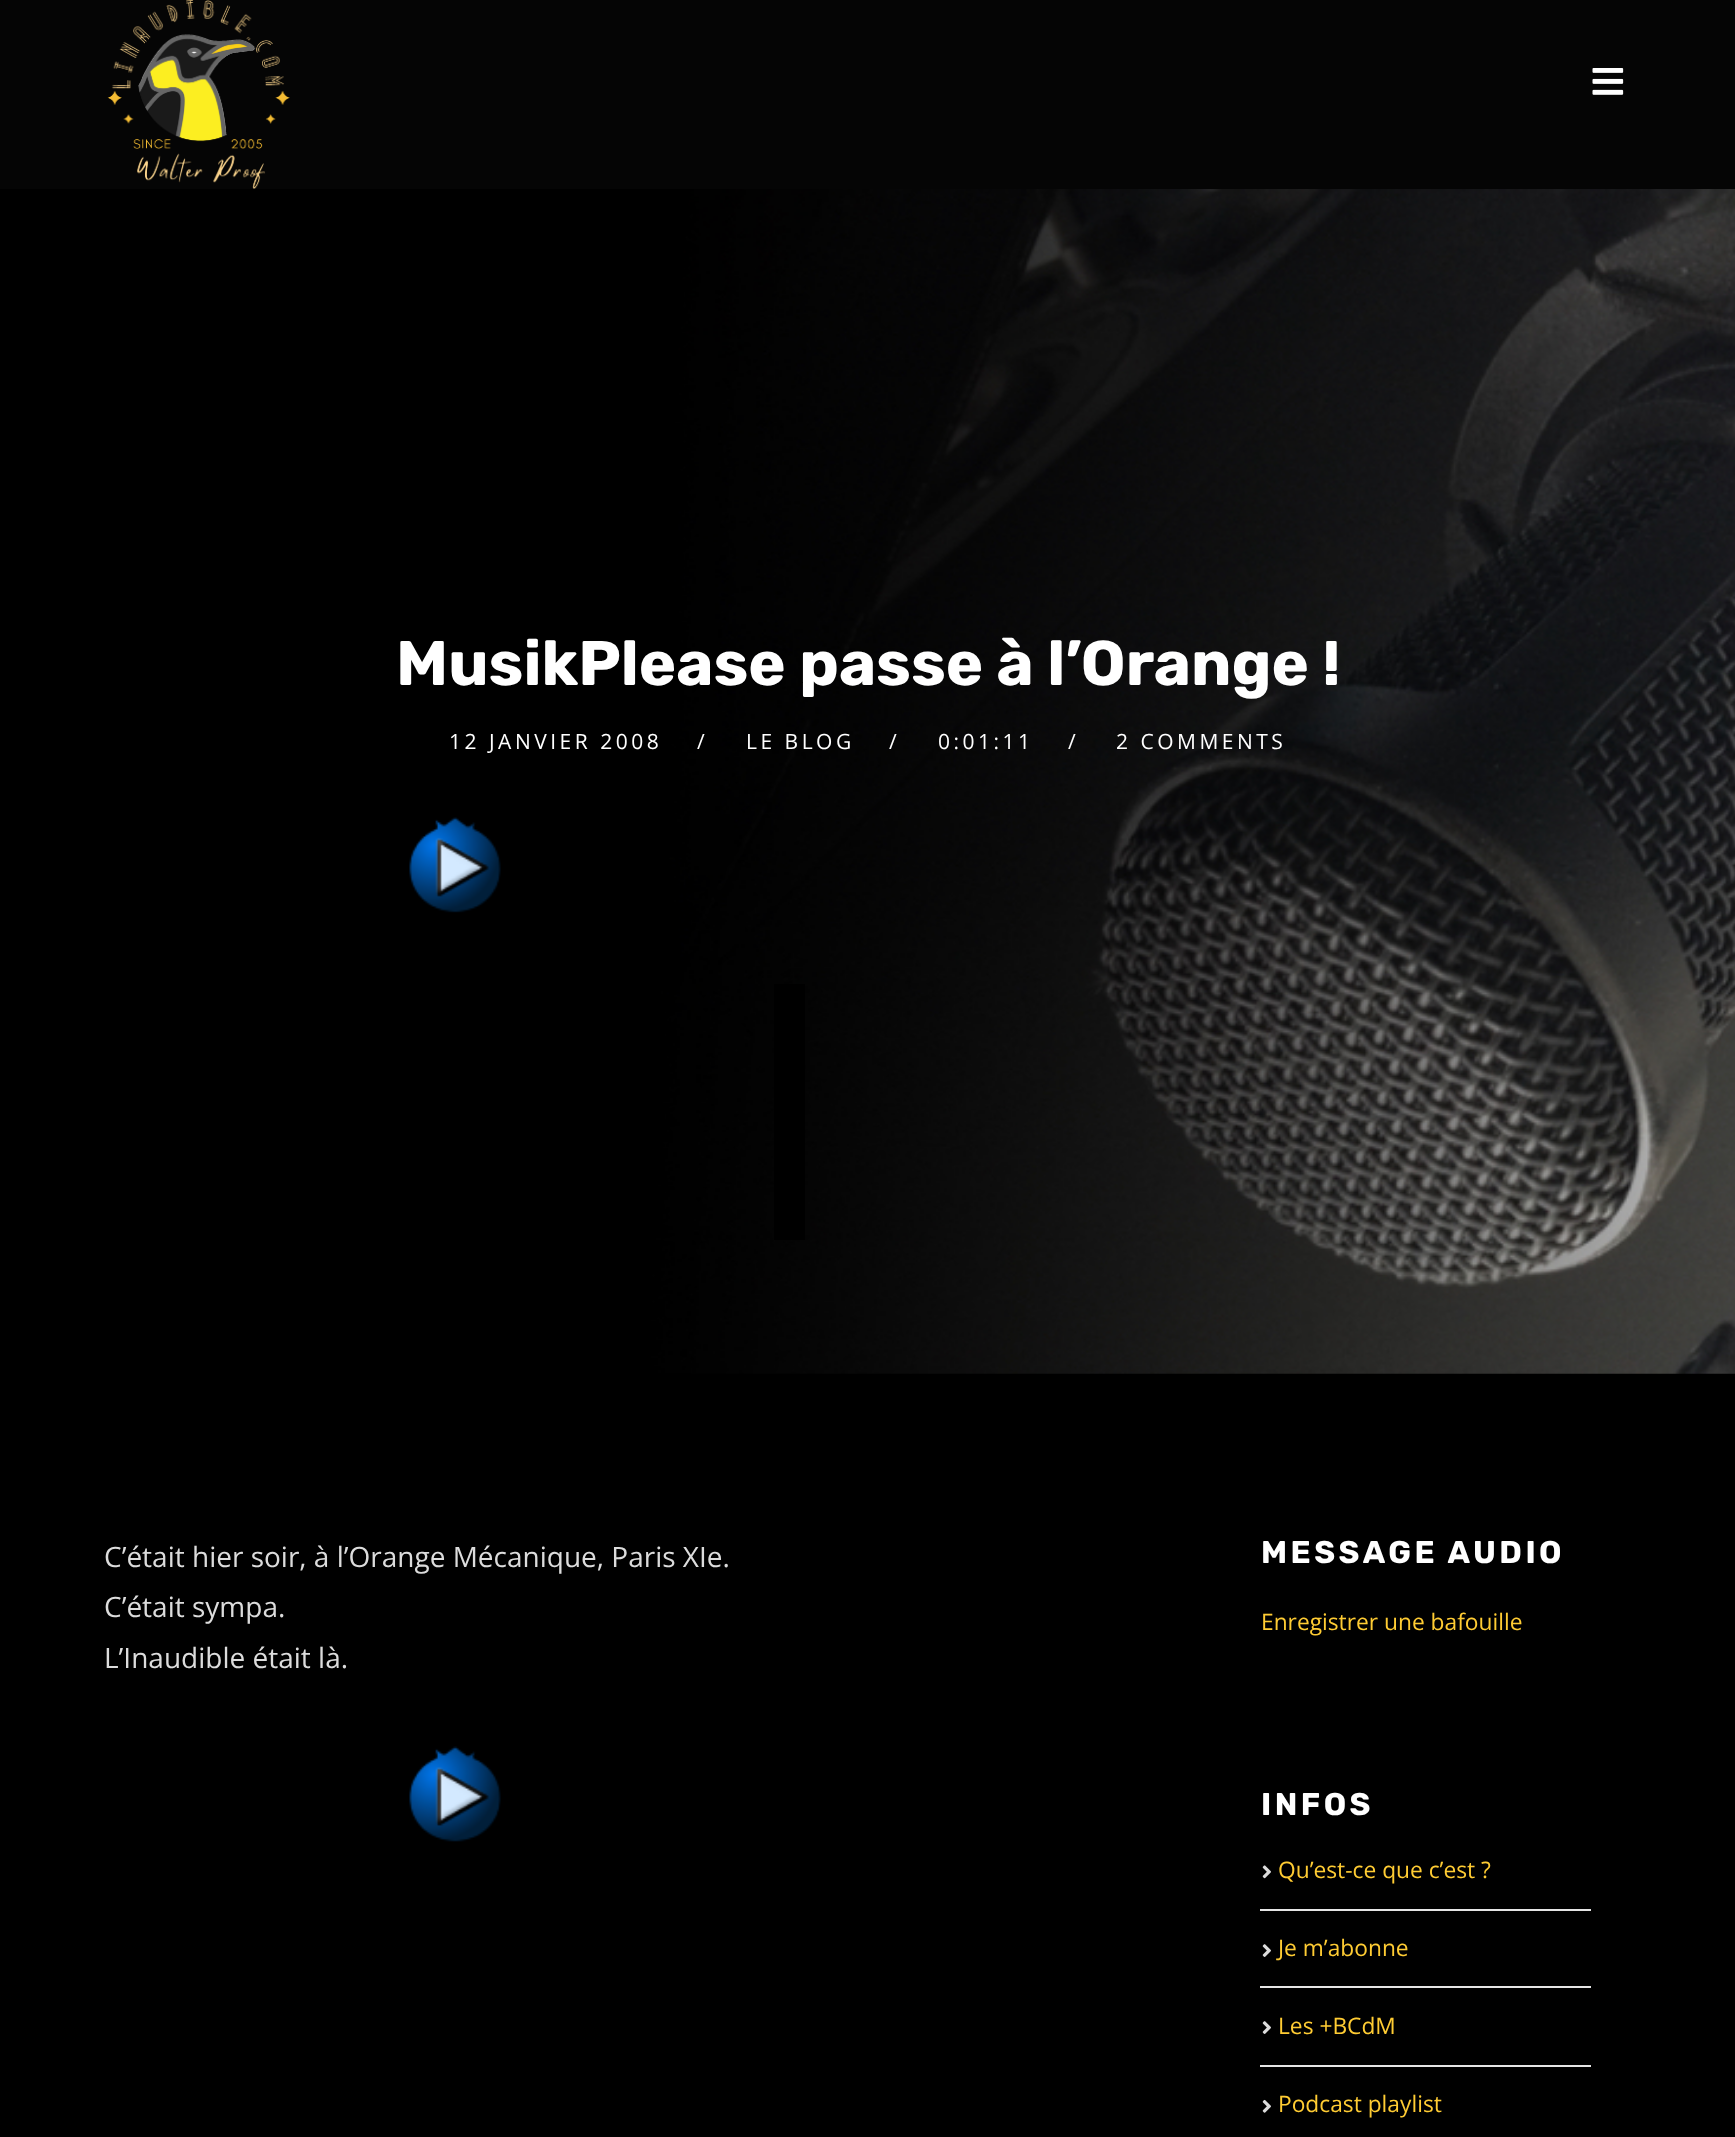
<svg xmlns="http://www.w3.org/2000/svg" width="1735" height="2137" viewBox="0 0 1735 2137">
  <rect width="100%" height="100%" fill="#000000"/>
  <rect x="0" y="0" width="1735" height="189" fill="#050505"/>
  <image x="107" y="0" width="183" height="189" href="img1.png"/>
  <image x="1592" y="68" width="32" height="27" href="img2.png"/>
  <image x="0" y="189" width="1735" height="1185" href="img3.png"/>
  <text x="396" y="685" font-family="Rubik" font-size="63" font-weight="bold" fill="#ffffff">MusikPlease passe à l’Orange !</text>
  <text x="449" y="749" font-family="Open Sans" font-size="21" letter-spacing="3.5" fill="#ffffff">12 JANVIER 2008</text>
  <text x="697" y="749" font-family="Open Sans" font-size="21" letter-spacing="3.5" fill="#ffffff">/</text>
  <text x="746" y="749" font-family="Open Sans" font-size="21" letter-spacing="3.5" fill="#ffffff">LE BLOG</text>
  <text x="889" y="749" font-family="Open Sans" font-size="21" letter-spacing="3.5" fill="#ffffff">/</text>
  <text x="938" y="749" font-family="Open Sans" font-size="21" letter-spacing="3.5" fill="#ffffff">0:01:11</text>
  <text x="1068" y="749" font-family="Open Sans" font-size="21" letter-spacing="3.5" fill="#ffffff">/</text>
  <text x="1116" y="749" font-family="Open Sans" font-size="21" letter-spacing="3.5" fill="#ffffff">2 COMMENTS</text>
  <image x="409" y="817" width="92" height="96" href="img4.png"/>
  <rect x="774" y="984" width="31" height="256" fill="#000000"/>
  <text x="104" y="1567" font-family="Open Sans" font-size="28" fill="#dcdcdc">C’était hier soir, à l’Orange Mécanique, Paris XIe.</text>
  <text x="104" y="1617" font-family="Open Sans" font-size="28" fill="#dcdcdc">C’était sympa.</text>
  <text x="104" y="1668" font-family="Open Sans" font-size="28" fill="#dcdcdc">L’Inaudible était là.</text>
  <image x="409" y="1746" width="92" height="96" href="img5.png"/>
  <text x="1261" y="1563" font-family="Rubik" font-size="31.5" font-weight="bold" letter-spacing="3.5" fill="#ffffff">MESSAGE AUDIO</text>
  <text x="1261" y="1630" font-family="Open Sans" font-size="22.75" fill="#ffcc33">Enregistrer une bafouille</text>
  <text x="1261" y="1815" font-family="Rubik" font-size="31.5" font-weight="bold" letter-spacing="3.5" fill="#ffffff">INFOS</text>
  <rect x="1260" y="1909" width="331" height="2" fill="#e5e5e5"/>
  <image x="1262" y="1865" width="9" height="14" href="img6.png"/>
  <text x="1278" y="1878" font-family="Open Sans" font-size="22.75" fill="#ffcc33">Qu’est-ce que c’est ?</text>
  <rect x="1260" y="1986" width="331" height="2" fill="#e5e5e5"/>
  <image x="1262" y="1944" width="9" height="13" href="img7.png"/>
  <text x="1278" y="1956" font-family="Open Sans" font-size="22.75" fill="#ffcc33">Je m’abonne</text>
  <rect x="1260" y="2065" width="331" height="2" fill="#e5e5e5"/>
  <image x="1262" y="2021" width="9" height="13" href="img7.png"/>
  <text x="1278" y="2034" font-family="Open Sans" font-size="22.75" fill="#ffcc33">Les +BCdM</text>
  <image x="1262" y="2099" width="9" height="14" href="img8.png"/>
  <text x="1278" y="2112" font-family="Open Sans" font-size="22.75" fill="#ffcc33">Podcast playlist</text>
</svg>
